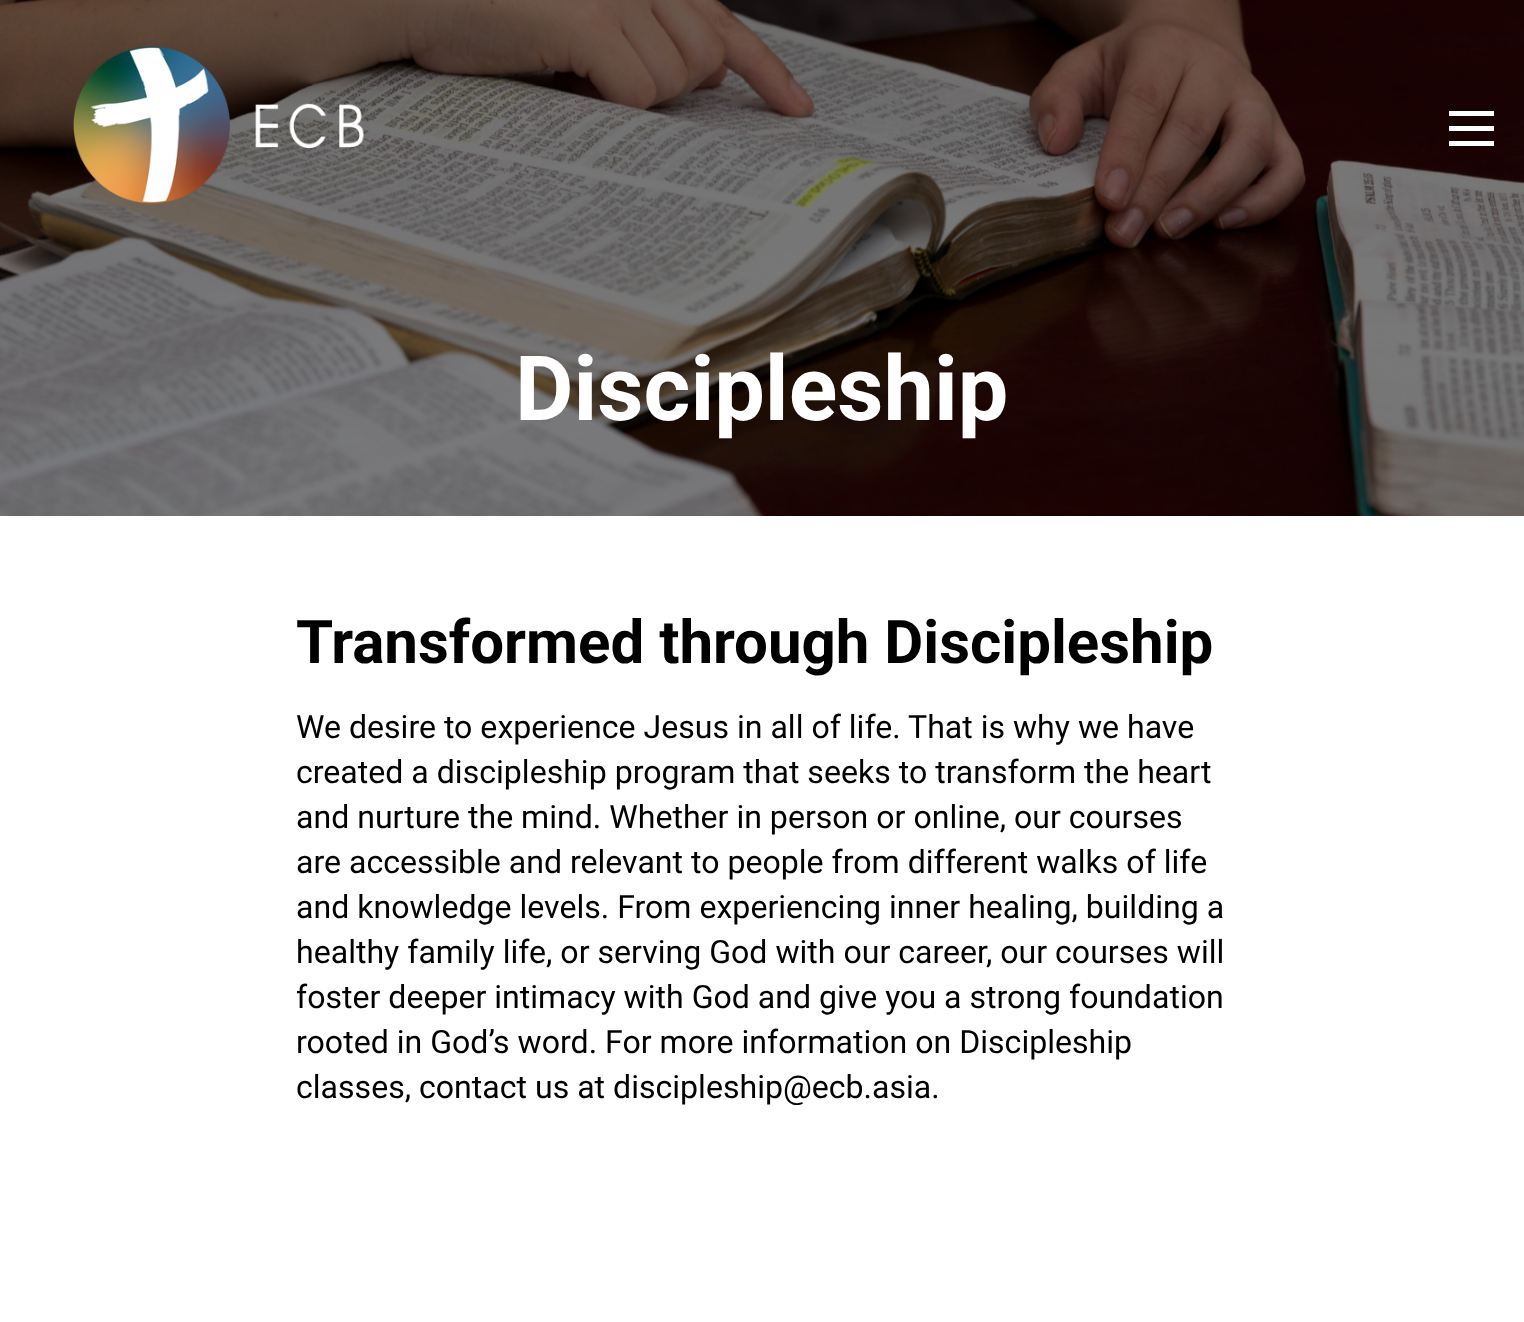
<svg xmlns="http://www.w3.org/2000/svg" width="1524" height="1322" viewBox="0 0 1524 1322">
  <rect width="100%" height="100%" fill="#ffffff"/>
  <image x="0" y="0" width="1524" height="516" href="img2.png"/>
  <image x="73" y="46" width="292" height="158" href="img1.png"/>
  <rect x="1449" y="111" width="45" height="5" fill="#ffffff"/>
  <rect x="1449" y="126" width="45" height="5" fill="#ffffff"/>
  <rect x="1449" y="141" width="45" height="5" fill="#ffffff"/>
  <text x="515" y="420" font-family="Roboto" font-size="90" font-weight="bold" fill="#ffffff">Discipleship</text>
  <text x="296" y="663" font-family="Roboto" font-size="60" font-weight="bold" fill="#000000">Transformed through Discipleship</text>
  <text x="296" y="738" font-family="Roboto" font-size="32.1" fill="#000000">We desire to experience Jesus in all of life. That is why we have</text>
  <text x="296" y="783" font-family="Roboto" font-size="32.1" fill="#000000">created a discipleship program that seeks to transform the heart</text>
  <text x="296" y="828" font-family="Roboto" font-size="32.1" fill="#000000">and nurture the mind. Whether in person or online, our courses</text>
  <text x="296" y="873" font-family="Roboto" font-size="32.1" fill="#000000">are accessible and relevant to people from different walks of life</text>
  <text x="296" y="918" font-family="Roboto" font-size="32.1" fill="#000000">and knowledge levels. From experiencing inner healing, building a</text>
  <text x="296" y="963" font-family="Roboto" font-size="32.1" fill="#000000">healthy family life, or serving God with our career, our courses will</text>
  <text x="296" y="1008" font-family="Roboto" font-size="32.1" fill="#000000">foster deeper intimacy with God and give you a strong foundation</text>
  <text x="296" y="1053" font-family="Roboto" font-size="32.1" fill="#000000">rooted in God’s word. For more information on Discipleship</text>
  <text x="296" y="1098" font-family="Roboto" font-size="32.1" fill="#000000">classes, contact us at discipleship@ecb.asia.</text>
</svg>
